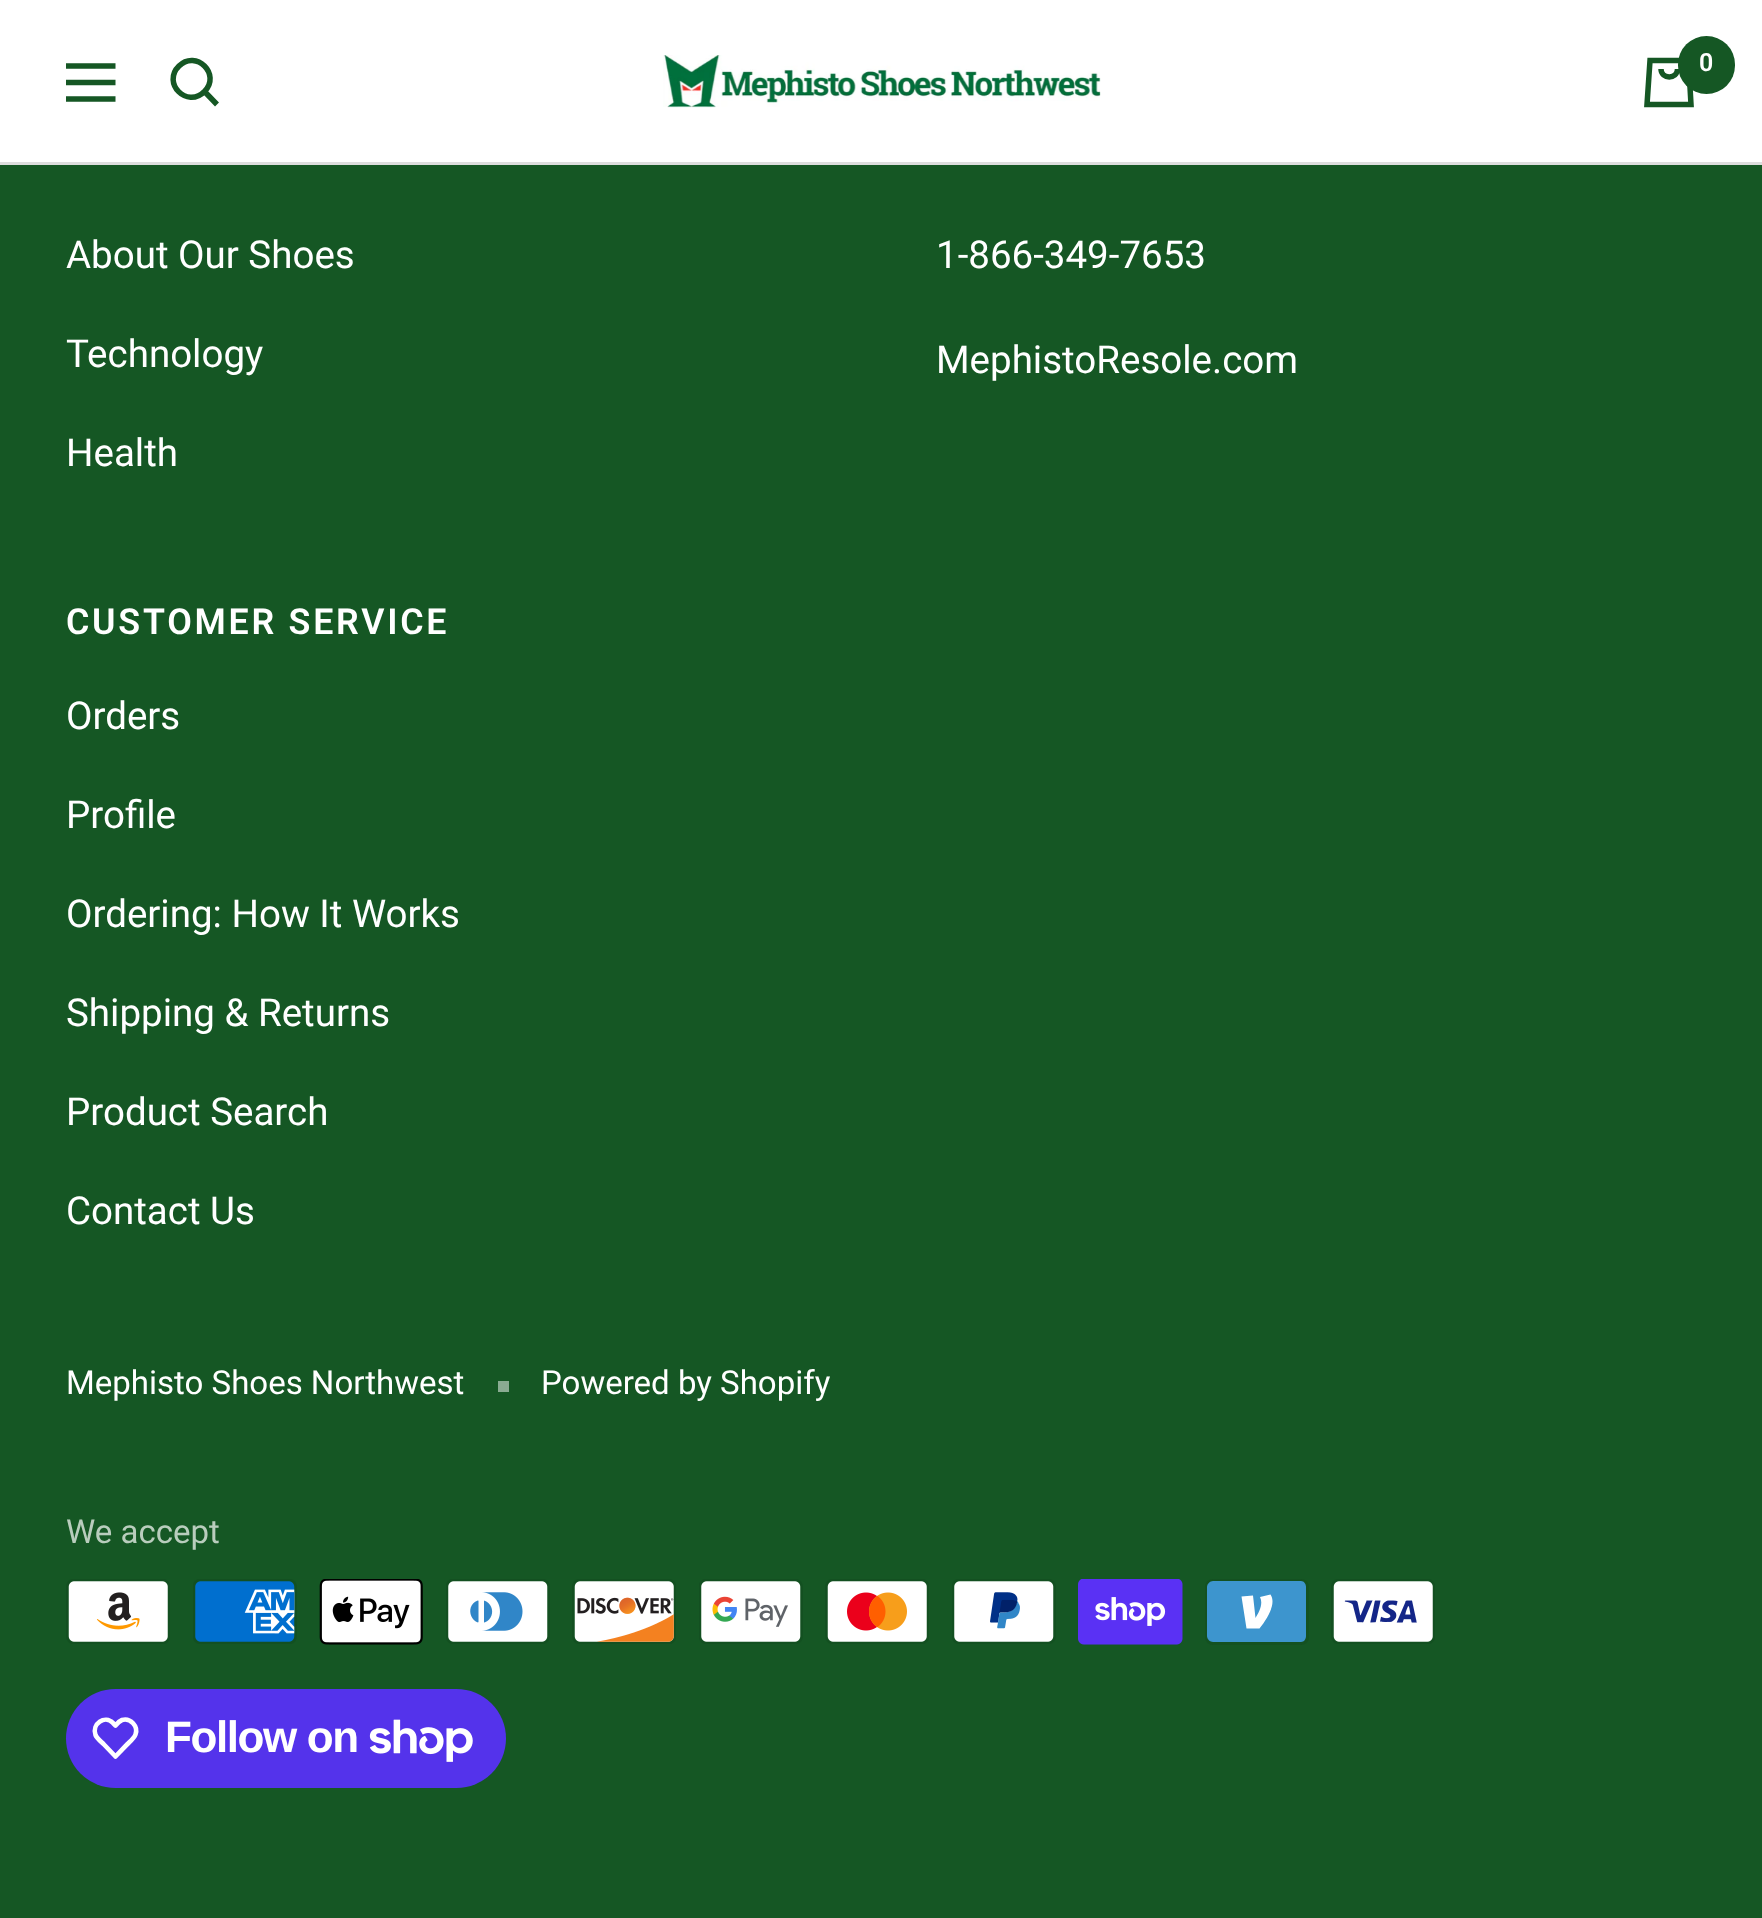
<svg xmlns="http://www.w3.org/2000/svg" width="1762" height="1918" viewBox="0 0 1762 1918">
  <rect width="100%" height="100%" fill="#155724"/>
  <path d="M0 162V165H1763V3V162Z" fill="#dddddd"/>
  <rect x="0" y="0" width="1762" height="162" fill="#ffffff"/>
  <path d="M66 66H115.5M66 99H115.5ZM66 82.5H115.5Z" fill="none" stroke="#155724" stroke-width="5.5"/>
  <path d="M204.5 91.5C221.5 74.5 196 49 179 66C161.5 83 187 109 204.5 91.5ZM204.5 91.5L217 104.5" fill="none" stroke="#155724" stroke-width="5.5"/>
  <image x="663" y="55" width="438" height="53" href="img1.png"/>
  <path d="M1650 60.5H1688.5L1691 104.5H1647ZM1661 69C1661 79.5 1677.5 79.5 1677.5 69" fill="none" stroke="#155724" stroke-width="5.5"/>
  <rect x="1678" y="36" width="57" height="58" rx="28.5" fill="#155724"/>
  <text x="1699" y="71" font-family="Roboto" font-size="25" font-weight="600" fill="#ffffff">0</text>
  <text x="66" y="268" font-family="Roboto" font-size="38.5" fill="#ffffff">About Our Shoes</text>
  <text x="66" y="367" font-family="Roboto" font-size="38.5" fill="#ffffff">Technology</text>
  <text x="66" y="466" font-family="Roboto" font-size="38.5" fill="#ffffff">Health</text>
  <text x="936" y="268" font-family="Roboto" font-size="38.5" fill="#ffffff">1-866-349-7653</text>
  <text x="936" y="373" font-family="Roboto" font-size="38.5" fill="#ffffff">MephistoResole.com</text>
  <text x="66" y="634" font-family="Roboto" font-size="35.75" font-weight="600" letter-spacing="2.75" fill="#ffffff">CUSTOMER SERVICE</text>
  <text x="66" y="729" font-family="Roboto" font-size="38.5" fill="#ffffff">Orders</text>
  <text x="66" y="828" font-family="Roboto" font-size="38.5" fill="#ffffff">Profile</text>
  <text x="66" y="927" font-family="Roboto" font-size="38.5" fill="#ffffff">Ordering: How It Works</text>
  <text x="66" y="1026" font-family="Roboto" font-size="38.5" fill="#ffffff">Shipping &amp; Returns</text>
  <text x="66" y="1125" font-family="Roboto" font-size="38.5" fill="#ffffff">Product Search</text>
  <text x="66" y="1224" font-family="Roboto" font-size="38.5" fill="#ffffff">Contact Us</text>
  <text x="66" y="1394" font-family="Roboto" font-size="33" fill="#ffffff">Mephisto Shoes Northwest</text>
  <rect x="498" y="1381" width="11" height="11" fill="#8aab92"/>
  <text x="541" y="1394" font-family="Roboto" font-size="33" fill="#ffffff">Powered by Shopify</text>
  <text x="66" y="1543" font-family="Roboto" font-size="33" fill="#b9cdbd">We accept</text>
  <image x="66" y="1579" width="104" height="65" href="img2.png"/>
  <image x="193" y="1579" width="104" height="65" href="img3.png"/>
  <image x="319" y="1579" width="104" height="66" href="img4.png"/>
  <image x="446" y="1579" width="104" height="65" href="img5.png"/>
  <image x="572" y="1579" width="104" height="65" href="img6.png"/>
  <image x="699" y="1579" width="104" height="65" href="img7.png"/>
  <image x="825" y="1579" width="104" height="65" href="img8.png"/>
  <image x="952" y="1579" width="104" height="65" href="img9.png"/>
  <image x="1078" y="1579" width="105" height="66" href="img10.png"/>
  <rect x="1205" y="1579" width="104" height="66" rx="8" fill="#145121"/>
  <path d="M1301 1581C1304 1581 1306 1584 1306 1587V1636C1306 1639 1304 1642 1301 1642H1213C1210 1642 1207 1639 1207 1636V1587C1207 1584 1210 1581 1213 1581H1301" fill="#3d95ce" fill-rule="evenodd"/>
  <path d="M1272.5 1601.5C1272.5 1610 1265.5 1621 1259.5 1628.5H1246.5L1241.5 1596.5L1253 1595.5L1255.5 1618C1259 1612.5 1263.5 1604 1260 1597L1270.5 1594.5C1272 1597 1272.5 1599 1272.5 1601.5Z" fill="#ffffff"/>
  <image x="1331" y="1579" width="104" height="65" href="img11.png"/>
  <rect x="66" y="1689" width="440" height="99" rx="49.5" fill="#5433eb"/>
  <path d="M113 1723L115.5 1725.5C117.5 1723 119.5 1721 122 1720C130.5 1717.5 138.5 1726.5 135.5 1734.5C134 1738.5 130 1741.5 127 1744.5L115.5 1756.5L104 1744.5C101 1741.5 97 1738.5 95.5 1735C91.5 1724 105 1714.5 113 1723Z" fill="none" stroke="#ffffff" stroke-width="4.6" stroke-linejoin="round"/>
  <text x="165" y="1752" font-family="Liberation Sans" font-size="44" font-weight="bold" letter-spacing="-1.4" fill="#ffffff">Follow on</text>
  <image x="369" y="1719" width="104" height="43" href="img12.png"/>
</svg>
